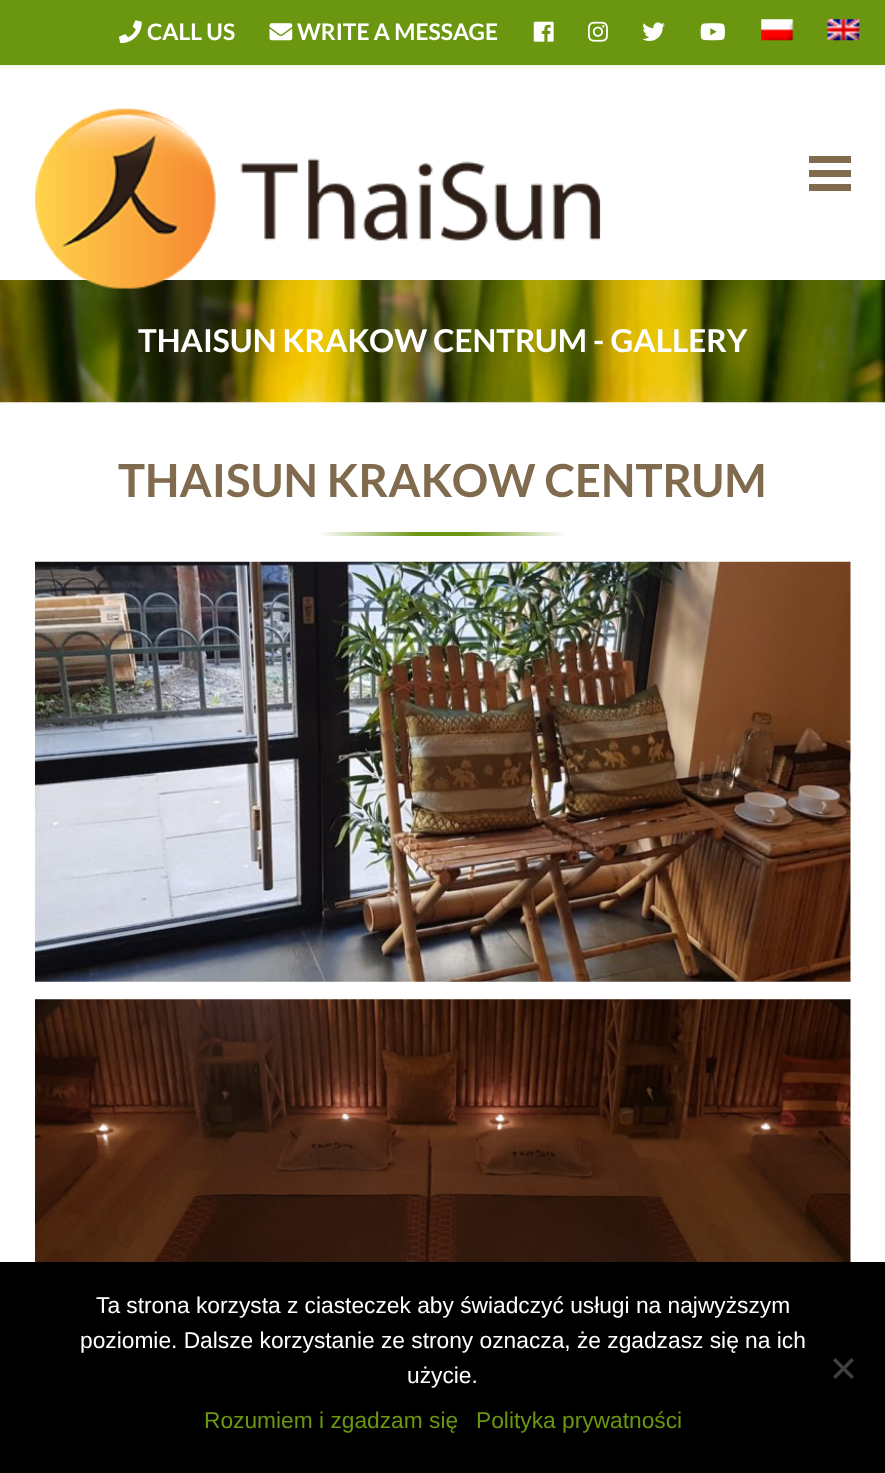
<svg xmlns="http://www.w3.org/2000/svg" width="885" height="1473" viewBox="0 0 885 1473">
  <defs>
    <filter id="blur1" x="-50%" y="-200%" width="200%" height="500%"><feGaussianBlur stdDeviation="2.5"/></filter>
    <linearGradient id="g1" gradientUnits="userSpaceOnUse" x1="320" y1="534" x2="565" y2="534"><stop offset="0" stop-color="#ffffff"/><stop offset="0.4" stop-color="#6b9610"/><stop offset="0.6" stop-color="#6b9610"/><stop offset="1" stop-color="#ffffff"/></linearGradient>
  </defs>
  <rect width="100%" height="100%" fill="#ffffff"/>
  <rect x="0" y="0" width="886" height="65" fill="#000000" fill-opacity="0.1" filter="url(#blur1)"/>
  <rect x="0" y="0" width="885" height="65" fill="#6b9610"/>
  <image x="119" y="20" width="23" height="24" href="img1.png"/>
  <text x="147" y="40" font-family="Lato" font-size="22.75" font-weight="bold" fill="#ffffff">CALL US</text>
  <image x="269" y="23" width="24" height="18" href="img2.png"/>
  <text x="297" y="40" font-family="Lato" font-size="22.75" font-weight="bold" fill="#ffffff">WRITE A MESSAGE</text>
  <image x="533" y="21" width="21" height="21" href="img3.png"/>
  <image x="588" y="21" width="20" height="21" href="img4.png"/>
  <image x="642" y="22" width="23" height="19" href="img5.png"/>
  <image x="700" y="23" width="25" height="18" href="img6.png"/>
  <image x="761" y="19" width="33" height="22" href="img7.png"/>
  <image x="827" y="19" width="33" height="22" href="img8.png"/>
  <image x="0" y="280" width="885" height="123" href="img10.png"/>
  <image x="35" y="108" width="566" height="181" href="img9.png"/>
  <rect x="809" y="156" width="42" height="7" fill="#806b4e"/>
  <rect x="809" y="170" width="42" height="7" fill="#806b4e"/>
  <rect x="809" y="184" width="42" height="7" fill="#806b4e"/>
  <text x="138" y="352" font-family="Lato" font-size="31.5" font-weight="bold" fill="#ffffff">THAISUN KRAKOW CENTRUM - GALLERY</text>
  <text x="118" y="497" font-family="Lato" font-size="45.5" font-weight="bold" fill="#806b4e">THAISUN KRAKOW CENTRUM</text>
  <rect x="320" y="532" width="245" height="4" fill="url(#g1)"/>
  <image x="35" y="561" width="816" height="421" href="img11.png"/>
  <image x="35" y="999" width="816" height="263" href="img12.png"/>
  <rect x="0" y="1262" width="885" height="211" fill="#000000"/>
  <text x="96" y="1313" font-family="Liberation Sans" font-size="22.75" fill="#ffffff">Ta strona korzysta z ciasteczek aby świadczyć usługi na najwyższym</text>
  <text x="80" y="1348" font-family="Liberation Sans" font-size="22.75" fill="#ffffff">poziomie. Dalsze korzystanie ze strony oznacza, że zgadzasz się na ich</text>
  <text x="407" y="1383" font-family="Liberation Sans" font-size="22.75" fill="#ffffff">użycie.</text>
  <path d="M851.5 1358L854 1360.5L835.5 1379L833 1376.5Z" fill="#404040"/>
  <path d="M833 1360.5L835.5 1358L854 1376.5L851.5 1379Z" fill="#404040"/>
  <text x="204" y="1428" font-family="Liberation Sans" font-size="22.75" fill="#6b9610">Rozumiem i zgadzam się</text>
  <text x="476" y="1428" font-family="Liberation Sans" font-size="22.75" fill="#6b9610">Polityka prywatności</text>
</svg>
